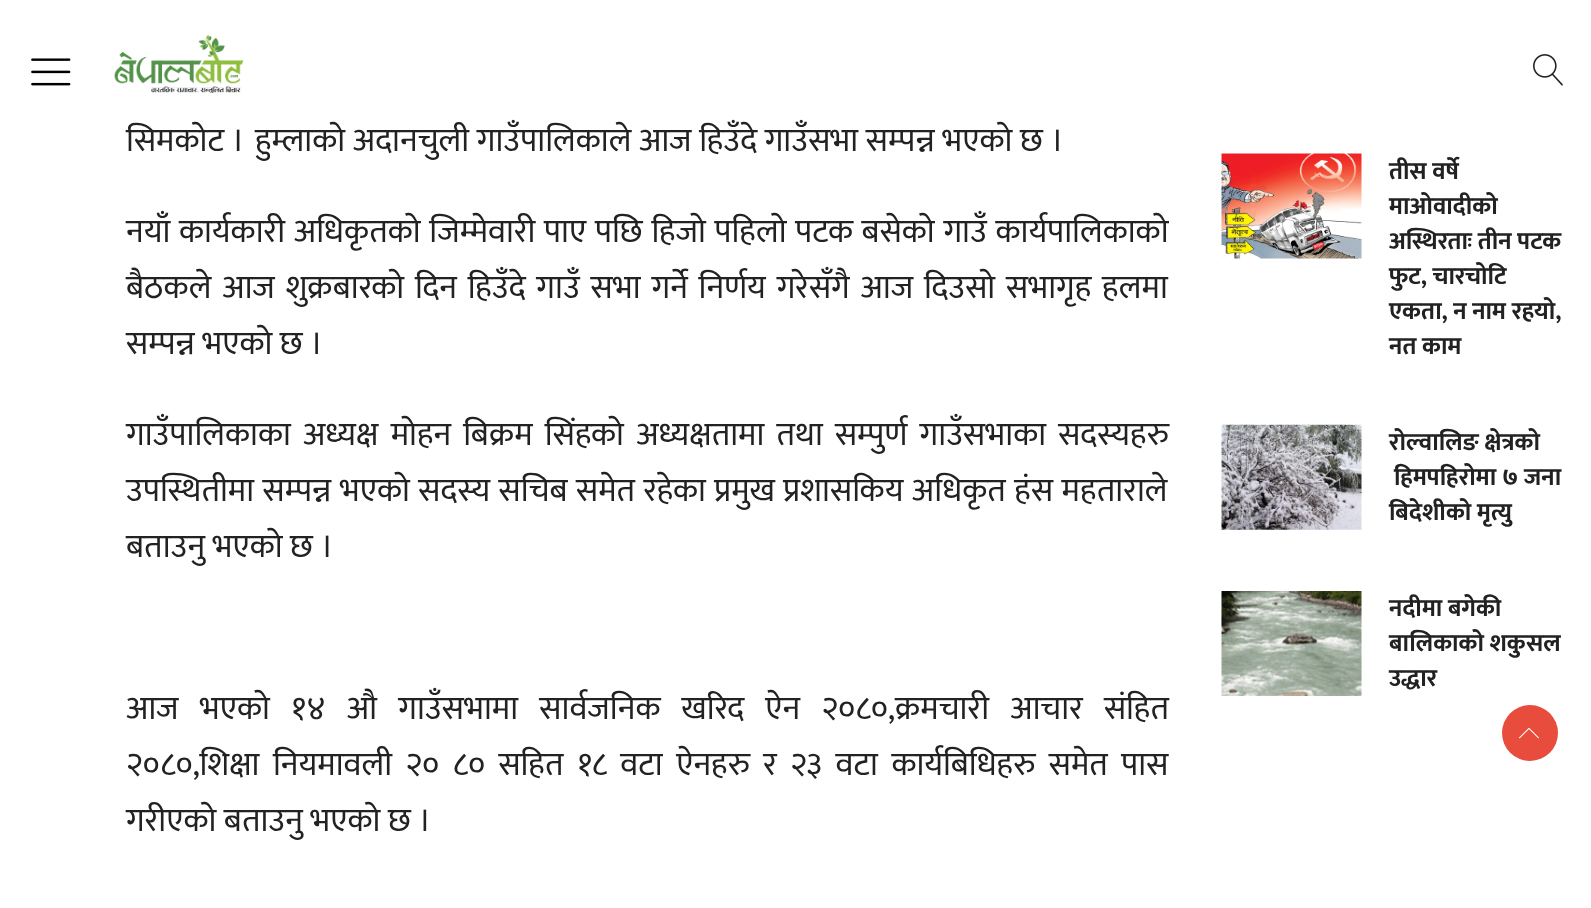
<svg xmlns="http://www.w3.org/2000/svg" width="1591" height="908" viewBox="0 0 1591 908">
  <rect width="100%" height="100%" fill="#ffffff"/>
  <image x="31" y="58" width="40" height="28" href="img1.png"/>
  <image x="114" y="35" width="130" height="58" href="img2.png"/>
  <image x="1533" y="54" width="30" height="32" href="img3.png"/>
  <text x="126" y="151" word-spacing="0.25" font-family="Mukta" font-size="33.25" fill="#222222" xml:space="preserve">सिमकोट ।  हुम्लाको अदानचुली गाउँपालिकाले आज हिउँदे गाउँसभा सम्पन्न भएको छ ।</text>
  <text x="126" y="242" word-spacing="1.25" font-family="Mukta" font-size="33.25" fill="#222222">नयाँ कार्यकारी अधिकृतको जिम्मेवारी पाए पछि हिजो पहिलो पटक बसेको गाउँ कार्यपालिकाको</text>
  <text x="126" y="298" word-spacing="3.4" font-family="Mukta" font-size="33.25" fill="#222222">बैठकले आज शुक्रबारको दिन हिउँदे गाउँ सभा गर्ने निर्णय गरेसँगै आज दिउसो सभागृह हलमा</text>
  <text x="126" y="354" font-family="Mukta" font-size="33.25" fill="#222222">सम्पन्न भएको छ ।</text>
  <text x="126" y="445" word-spacing="4.75" font-family="Mukta" font-size="33.25" fill="#222222">गाउँपालिकाका अध्यक्ष मोहन बिक्रम सिंहको अध्यक्षतामा तथा सम्पुर्ण गाउँसभाका सदस्यहरु</text>
  <text x="126" y="501" word-spacing="1" font-family="Mukta" font-size="33.25" fill="#222222">उपस्थितीमा सम्पन्न भएको सदस्य सचिब समेत रहेका प्रमुख प्रशासकिय अधिकृत हंस महताराले</text>
  <text x="126" y="557" font-family="Mukta" font-size="33.25" fill="#222222">बताउनु भएको छ ।</text>
  <text x="126" y="719" word-spacing="13.75" font-family="Mukta" font-size="33.25" fill="#222222">आज भएको १४ औ गाउँसभामा सार्वजनिक खरिद ऐन २०८०,क्रमचारी आचार संहित</text>
  <text x="126" y="775" word-spacing="6" font-family="Mukta" font-size="33.25" fill="#222222">२०८०,शिक्षा नियमावली २० ८० सहित १८ वटा ऐनहरु र २३ वटा कार्यबिधिहरु समेत पास</text>
  <text x="126" y="831" font-family="Mukta" font-size="33.25" fill="#222222">गरीएको बताउनु भएको छ ।</text>
  <image x="1221" y="153" width="141" height="106" href="img4.png"/>
  <text x="1389" y="179" font-family="Mukta" font-size="24.5" font-weight="bold" fill="#222222">तीस वर्षे</text>
  <text x="1389" y="214" font-family="Mukta" font-size="24.5" font-weight="bold" fill="#222222">माओवादीको</text>
  <text x="1389" y="249" font-family="Mukta" font-size="24.5" font-weight="bold" fill="#222222">अस्थिरताः तीन पटक</text>
  <text x="1389" y="284" font-family="Mukta" font-size="24.5" font-weight="bold" fill="#222222">फुट, चारचोटि</text>
  <text x="1389" y="319" font-family="Mukta" font-size="24.5" font-weight="bold" fill="#222222">एकता, न नाम रहयो,</text>
  <text x="1389" y="354" font-family="Mukta" font-size="24.5" font-weight="bold" fill="#222222">नत काम</text>
  <image x="1221" y="424" width="141" height="106" href="img5.png"/>
  <text x="1389" y="450" font-family="Mukta" font-size="24.5" font-weight="bold" fill="#222222">रोल्वालिङ क्षेत्रको</text>
  <text x="1394" y="485" font-family="Mukta" font-size="24.5" font-weight="bold" fill="#222222">हिमपहिरोमा ७ जना</text>
  <text x="1389" y="520" font-family="Mukta" font-size="24.5" font-weight="bold" fill="#222222">बिदेशीको मृत्यु</text>
  <image x="1221" y="591" width="141" height="105" href="img6.png"/>
  <text x="1389" y="616" font-family="Mukta" font-size="24.5" font-weight="bold" fill="#222222">नदीमा बगेकी</text>
  <text x="1389" y="651" font-family="Mukta" font-size="24.5" font-weight="bold" fill="#222222">बालिकाको शकुसल</text>
  <text x="1389" y="686" font-family="Mukta" font-size="24.5" font-weight="bold" fill="#222222">उद्धार</text>
  <circle cx="1530" cy="733" r="28" fill="#e74c3c"/>
  <image x="1519" y="727" width="20" height="12" href="img7.png"/>
</svg>
